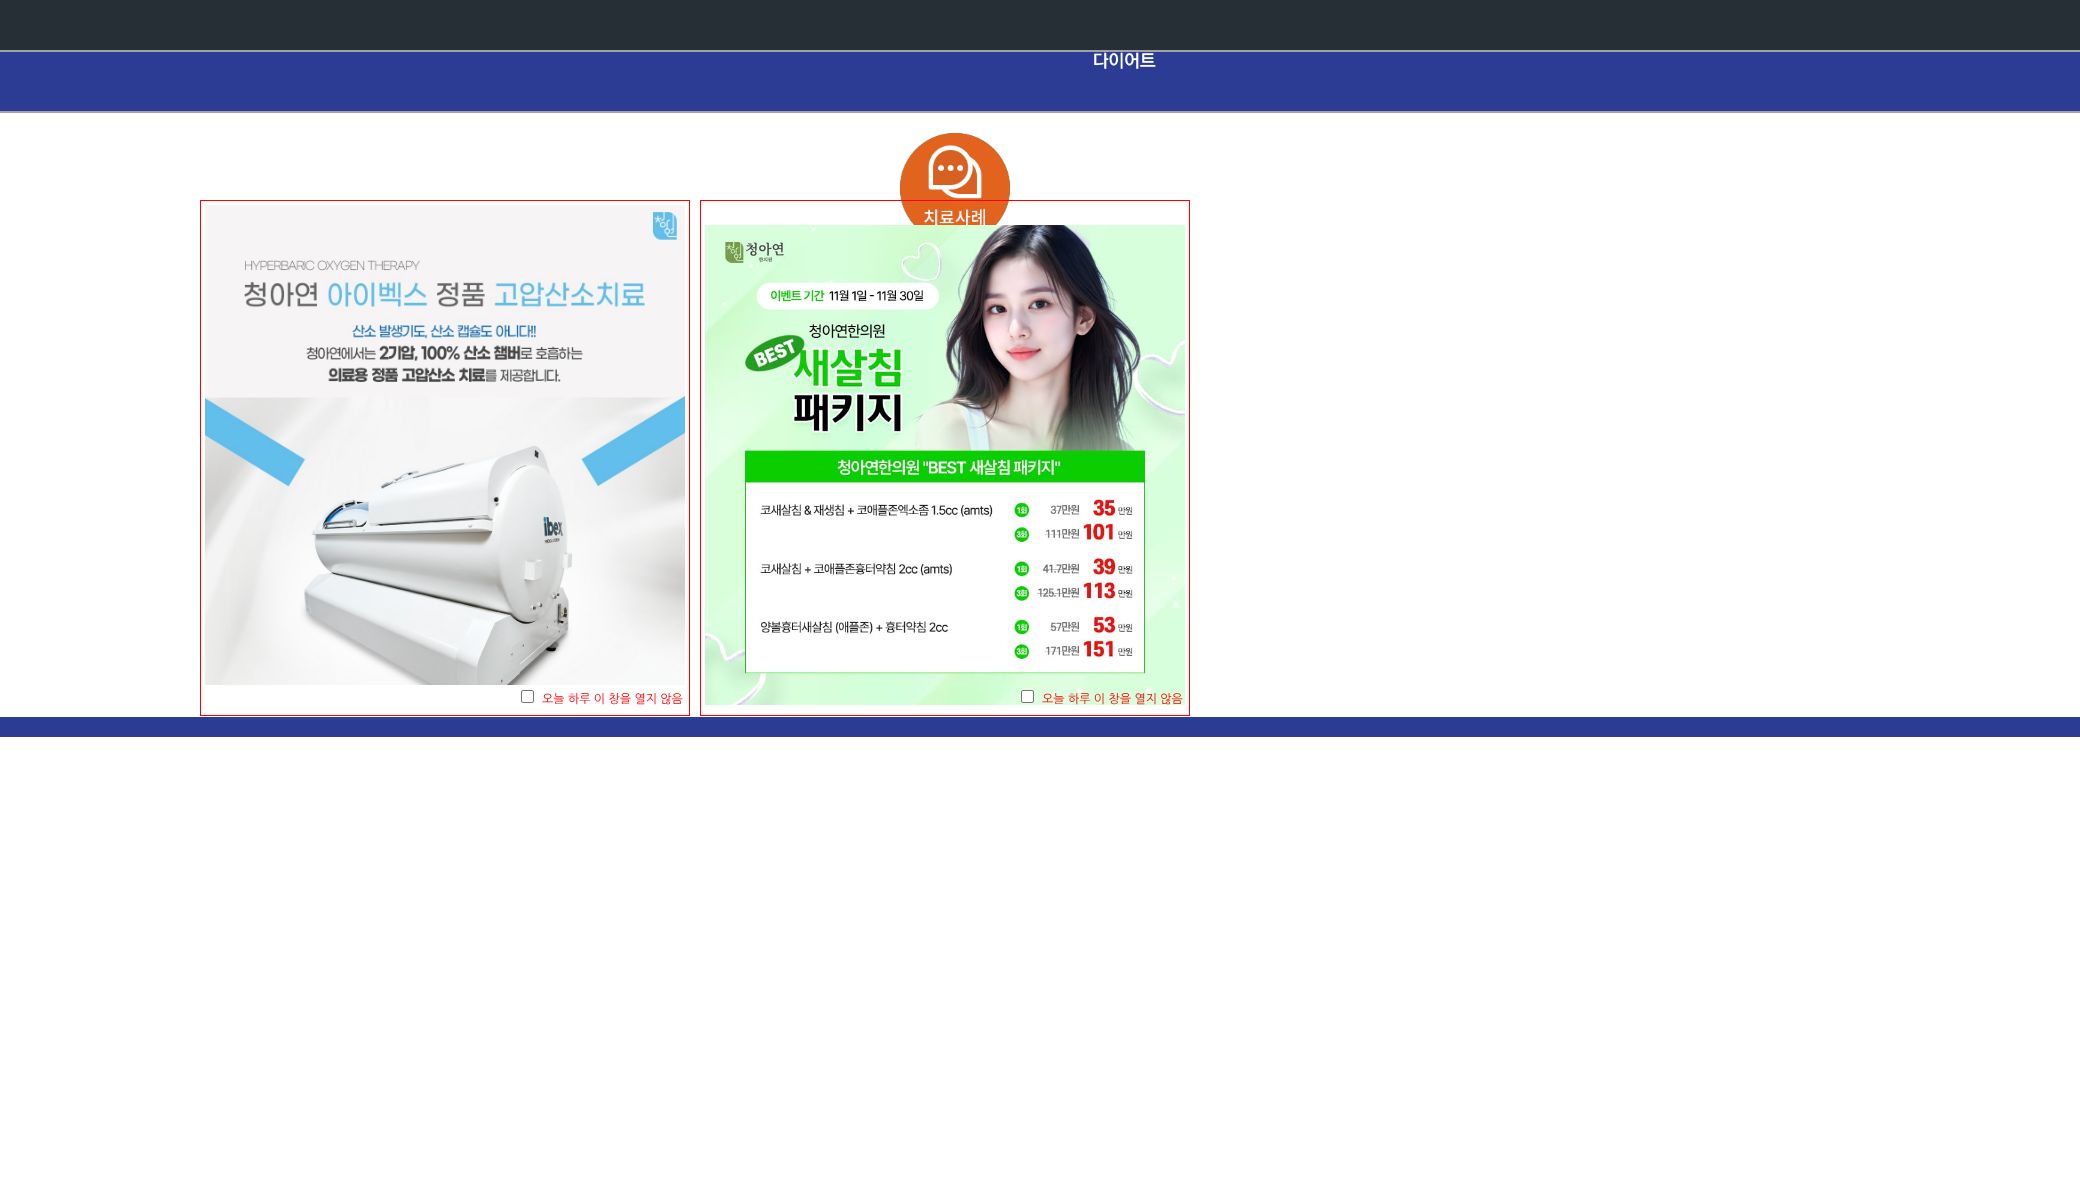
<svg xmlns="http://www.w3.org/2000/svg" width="2080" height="1183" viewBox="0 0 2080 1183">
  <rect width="100%" height="100%" fill="#ffffff"/>
  <rect x="0" y="0" width="2080" height="50" fill="#252f35"/>
  <rect x="0" y="52" width="2080" height="59" fill="#2c3b94"/>
  <rect x="0" y="50" width="2080" height="2" fill="#a1a1a9"/>
  <rect x="0" y="111" width="2080" height="2" fill="#a1a1a9"/>
  <image x="1094" y="52" width="62" height="17" href="img1.png"/>
  <image x="900" y="133" width="110" height="92" href="img2.png"/>
  <rect x="200.5" y="200.5" width="489" height="515" fill="none" stroke="#ff0000"/>
  <image x="205" y="205" width="480" height="480" href="img3.png"/>
  <rect x="521.5" y="690.5" width="12" height="12" rx="1.5" fill="none" stroke="#767676"/>
  <text x="542" y="703" font-family="NanumGothic" font-size="12" fill="#ff0000">오늘 하루 이 창을 열지 않음</text>
  <rect x="700.5" y="200.5" width="489" height="515" fill="none" stroke="#ff0000"/>
  <image x="705" y="225" width="480" height="480" href="img4.png"/>
  <rect x="1021.5" y="690.5" width="12" height="12" rx="1.5" fill="#ffffff" stroke="#767676"/>
  <text x="1042" y="703" font-family="NanumGothic" font-size="12" fill="#ff0000">오늘 하루 이 창을 열지 않음</text>
  <rect x="0" y="717" width="2080" height="20" fill="#2c3b94"/>
</svg>
